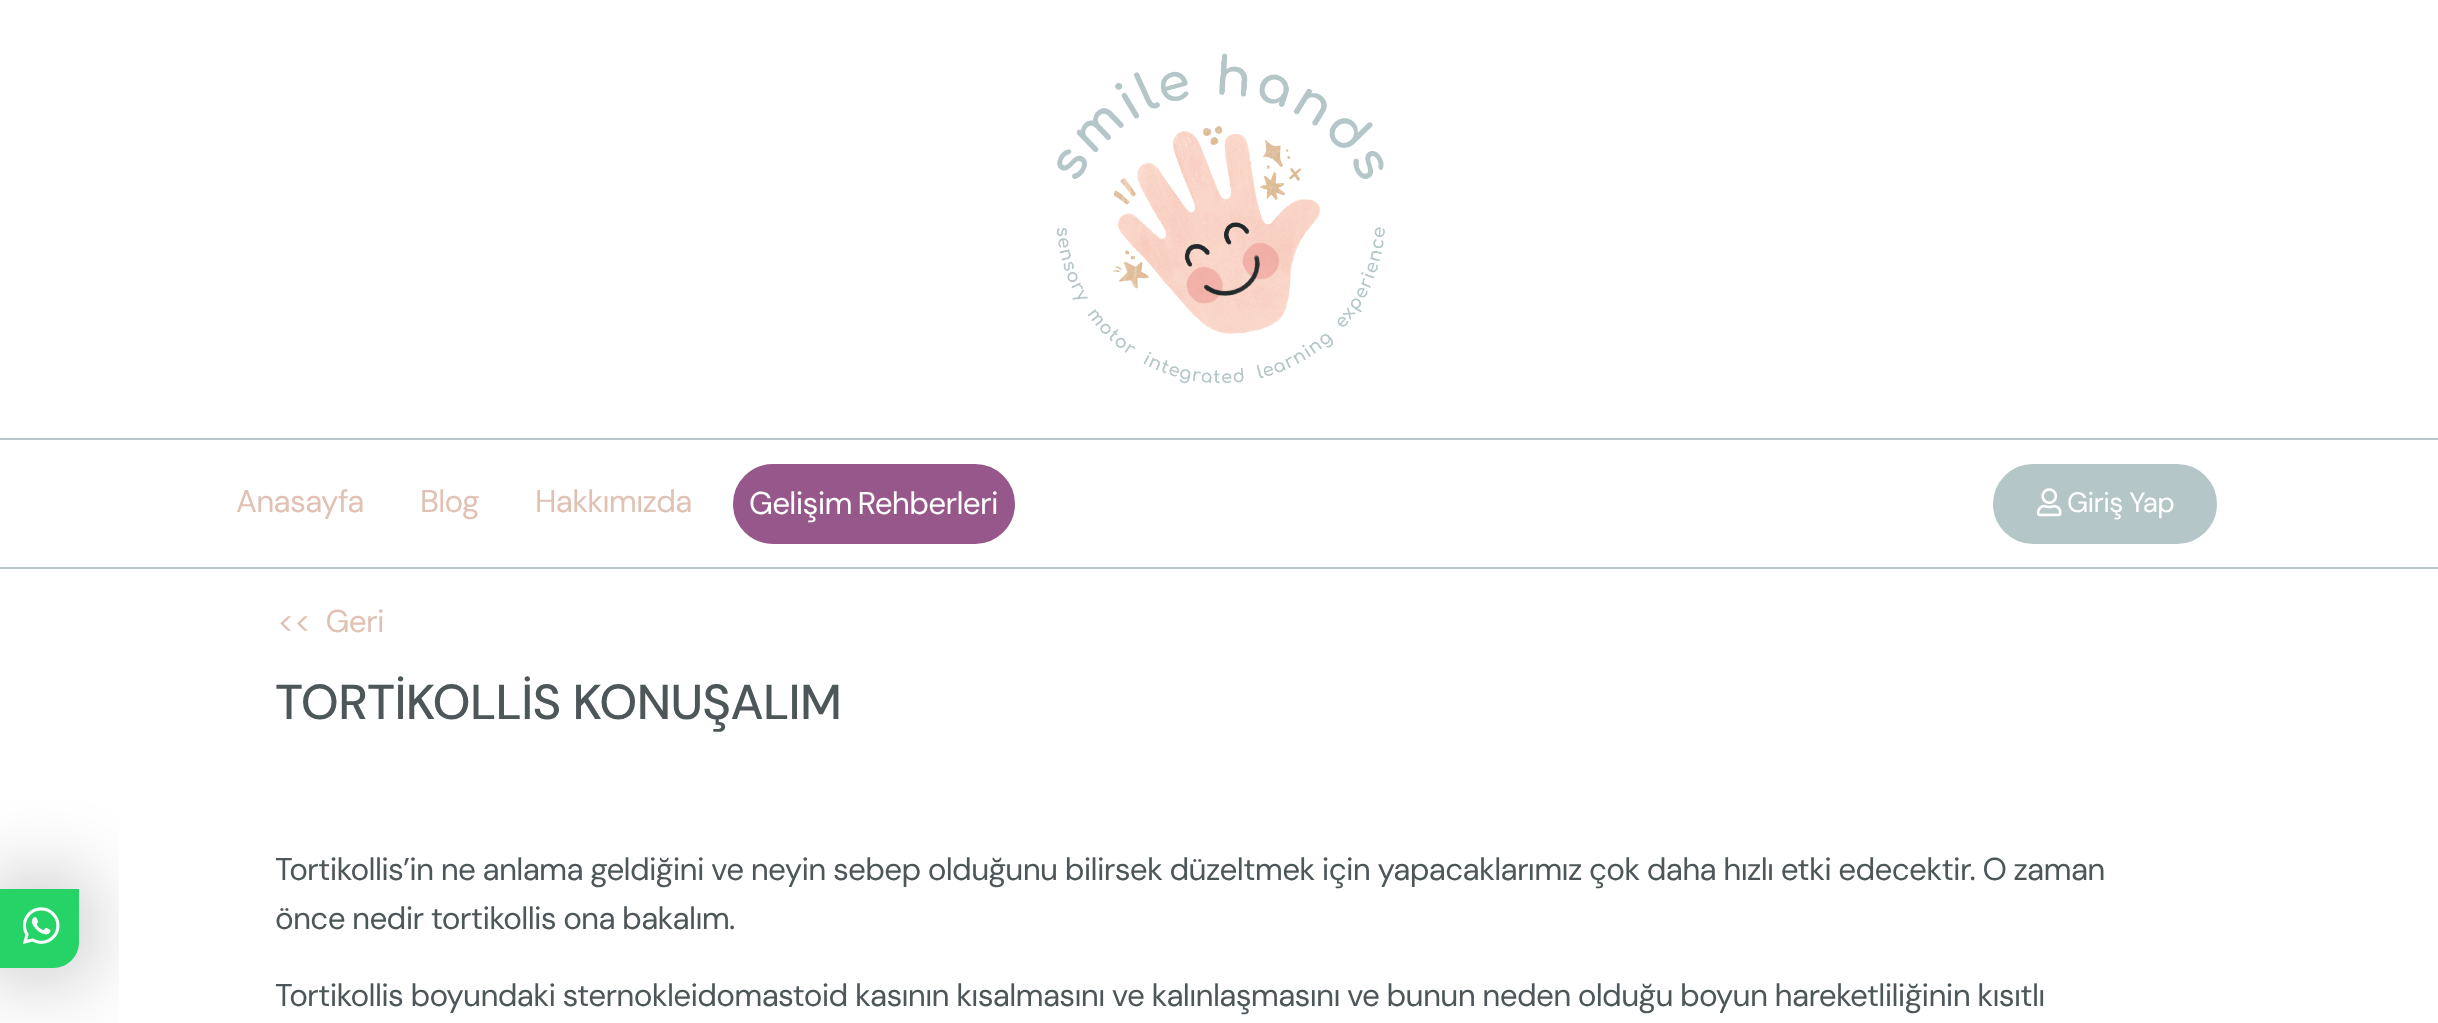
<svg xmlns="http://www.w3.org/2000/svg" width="2438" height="1023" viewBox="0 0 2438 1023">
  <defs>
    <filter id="blur1" x="-50%" y="-200%" width="200%" height="500%"><feGaussianBlur stdDeviation="44"/></filter>
  </defs>
  <rect width="100%" height="100%" fill="#ffffff"/>
  <image x="1056" y="53" width="329" height="331" href="img1.png"/>
  <rect x="0" y="438" width="2438" height="2" fill="#b5c6c9"/>
  <rect x="0" y="567" width="2438" height="2" fill="#b5c6c9"/>
  <text x="236" y="512" font-family="DM Sans" font-size="31.5" letter-spacing="-0.7" fill="#e1c1b4">Anasayfa</text>
  <text x="420" y="512" font-family="DM Sans" font-size="31.5" letter-spacing="-0.7" fill="#e1c1b4">Blog</text>
  <text x="535" y="512" font-family="DM Sans" font-size="31.5" letter-spacing="-0.7" fill="#e1c1b4">Hakkımızda</text>
  <rect x="734" y="465" width="280" height="78" rx="39" fill="#96588a" stroke="#96588a" stroke-width="2"/>
  <text x="749" y="514" word-spacing="-2" font-family="DM Sans" font-size="31.5" letter-spacing="-0.7" fill="#ffffff">Gelişim Rehberleri</text>
  <rect x="1994" y="465" width="222" height="78" rx="39" fill="#b5c6c9" stroke="#b5c6c9" stroke-width="2"/>
  <image x="2037" y="488" width="25" height="29" href="img2.png"/>
  <text x="2067" y="512" font-family="DM Sans" font-size="28" letter-spacing="-0.7" fill="#ffffff">Giriş Yap</text>
  <rect x="0" y="889" width="79" height="79" rx="26" fill="#000000" fill-opacity="0.4" filter="url(#blur1)"/>
  <path d="M0 889H79V942C79 956.5 67.5 968 53 968H0Z" fill="#25d366"/>
  <image x="22" y="907" width="38" height="37" href="img3.png"/>
  <text x="277" y="632" font-family="DM Sans" font-size="31.5" letter-spacing="-0.7" fill="#e1c1b4" xml:space="preserve">&lt;&lt;  Geri</text>
  <text x="275" y="719" font-family="DM Sans" font-size="49" font-weight="500" letter-spacing="-0.7" fill="#4d5659">TORTİKOLLİS KONUŞALIM</text>
  <text x="275" y="880" word-spacing="-0.4" font-family="DM Sans" font-size="31.5" letter-spacing="-0.7" fill="#4d5659">Tortikollis’in ne anlama geldiğini ve neyin sebep olduğunu bilirsek düzeltmek için yapacaklarımız çok daha hızlı etki edecektir. O zaman</text>
  <text x="275" y="929" word-spacing="-0.5" font-family="DM Sans" font-size="31.5" letter-spacing="-0.7" fill="#4d5659">önce nedir tortikollis ona bakalım.</text>
  <text x="275" y="1006" word-spacing="-0.4" font-family="DM Sans" font-size="31.5" letter-spacing="-0.7" fill="#4d5659">Tortikollis boyundaki sternokleidomastoid kasının kısalmasını ve kalınlaşmasını ve bunun neden olduğu boyun hareketliliğinin kısıtlı</text>
</svg>
